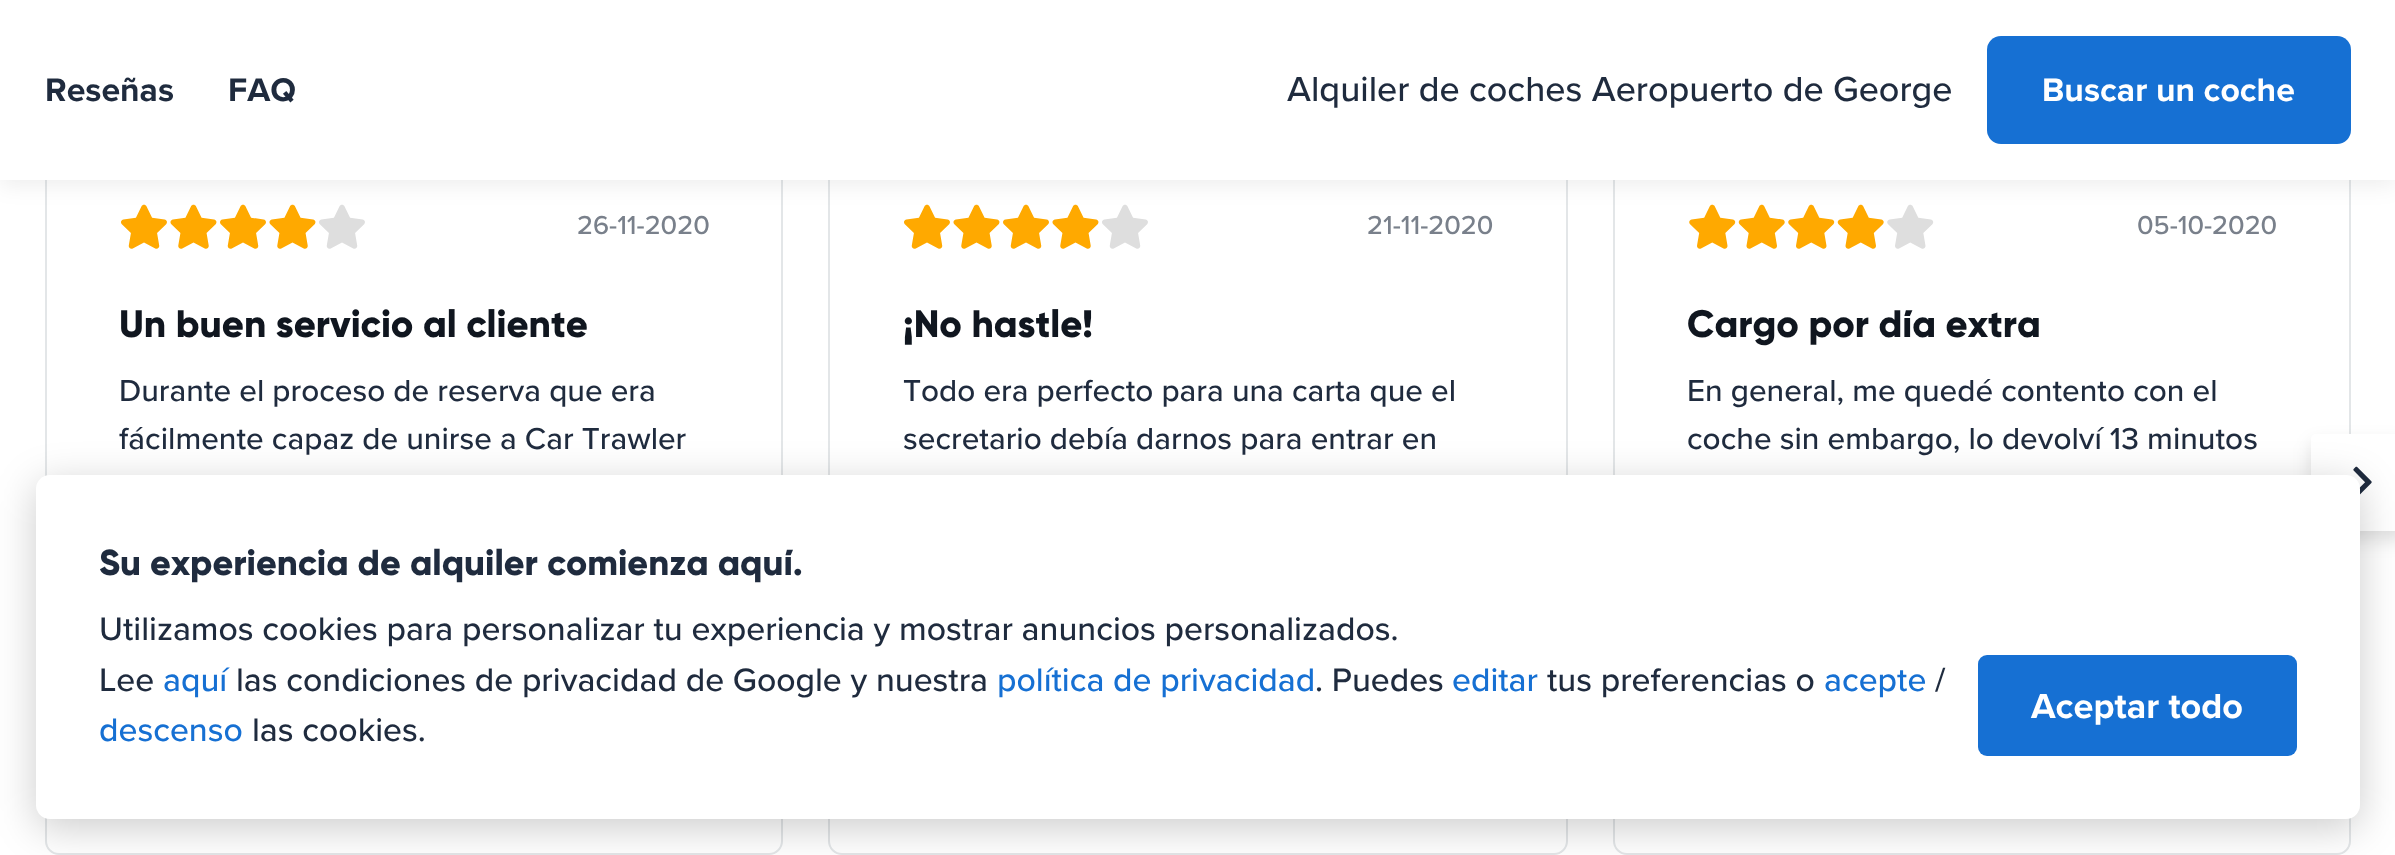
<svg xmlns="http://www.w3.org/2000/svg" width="2395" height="855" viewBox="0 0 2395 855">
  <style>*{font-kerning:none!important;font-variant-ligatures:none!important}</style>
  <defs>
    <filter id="blur1" x="-50%" y="-200%" width="200%" height="500%"><feGaussianBlur stdDeviation="11"/></filter>
    <filter id="blur2" x="-50%" y="-200%" width="200%" height="500%"><feGaussianBlur stdDeviation="9"/></filter>
    <filter id="blur3" x="-50%" y="-200%" width="200%" height="500%"><feGaussianBlur stdDeviation="20"/></filter>
  </defs>
  <rect width="100%" height="100%" fill="#ffffff"/>
  <rect x="46" y="111" width="736" height="743" rx="13" fill="none" stroke="#e3e6e8" stroke-width="2"/>
  <image x="121" y="204" width="46" height="45" href="img1.png"/>
  <image x="170" y="204" width="47" height="45" href="img2.png"/>
  <image x="220" y="204" width="46" height="45" href="img3.png"/>
  <image x="269" y="204" width="47" height="45" href="img2.png"/>
  <image x="319" y="204" width="46" height="45" href="img4.png"/>
  <rect x="829" y="111" width="738" height="743" rx="13" fill="none" stroke="#e3e6e8" stroke-width="2"/>
  <image x="904" y="204" width="46" height="45" href="img1.png"/>
  <image x="953" y="204" width="47" height="45" href="img2.png"/>
  <image x="1003" y="204" width="46" height="45" href="img5.png"/>
  <image x="1052" y="204" width="47" height="45" href="img2.png"/>
  <image x="1102" y="204" width="46" height="45" href="img4.png"/>
  <rect x="1614" y="111" width="736" height="743" rx="13" fill="none" stroke="#e3e6e8" stroke-width="2"/>
  <image x="1689" y="204" width="47" height="45" href="img6.png"/>
  <image x="1738" y="204" width="47" height="45" href="img7.png"/>
  <image x="1788" y="204" width="47" height="45" href="img6.png"/>
  <image x="1837" y="204" width="47" height="45" href="img8.png"/>
  <image x="1887" y="204" width="47" height="45" href="img9.png"/>
  <rect x="0" y="5" width="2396" height="180" fill="#000000" fill-opacity="0.07" filter="url(#blur1)"/>
  <rect x="0" y="0" width="2395" height="180" fill="#ffffff"/>
  <text x="45" y="101" font-family="Proxima Nova" font-size="33.75" font-weight="bold" fill="#1f2b3e">Reseñas</text>
  <text x="228" y="101" font-family="Proxima Nova" font-size="33.75" font-weight="bold" fill="#1f2b3e">FAQ</text>
  <text x="1287" y="101" font-family="Proxima Nova" font-size="36" font-weight="500" fill="#1f2b3e">Alquiler de coches Aeropuerto de George</text>
  <rect x="1987" y="36" width="364" height="108" rx="14" fill="#1670d3"/>
  <text x="2042" y="101" font-family="Proxima Nova" font-size="33.75" font-weight="bold" fill="#ffffff">Buscar un coche</text>
  <text x="577" y="234" font-family="Proxima Nova" font-size="27" font-weight="500" fill="#79808b">26-11-2020</text>
  <text x="119" y="337" font-family="Gilroy" font-size="38.25" font-weight="800" fill="#10161f">Un buen servicio al cliente</text>
  <text x="119" y="401" font-family="Proxima Nova" font-size="31.5" font-weight="500" fill="#1f2b3e">Durante el proceso de reserva que era</text>
  <text x="119" y="449" font-family="Proxima Nova" font-size="31.5" font-weight="500" fill="#1f2b3e">fácilmente capaz de unirse a Car Trawler</text>
  <text x="1367" y="234" font-family="Proxima Nova" font-size="27" font-weight="500" fill="#79808b">21-11-2020</text>
  <text x="903" y="337" font-family="Gilroy" font-size="38.25" font-weight="800" fill="#10161f">¡No hastle!</text>
  <text x="903" y="401" font-family="Proxima Nova" font-size="31.5" font-weight="500" fill="#1f2b3e">Todo era perfecto para una carta que el</text>
  <text x="903" y="449" font-family="Proxima Nova" font-size="31.5" font-weight="500" fill="#1f2b3e">secretario debía darnos para entrar en</text>
  <text x="2137" y="234" font-family="Proxima Nova" font-size="27" font-weight="500" fill="#79808b">05-10-2020</text>
  <text x="1687" y="337" font-family="Gilroy" font-size="38.25" font-weight="800" fill="#10161f">Cargo por día extra</text>
  <text x="1687" y="401" font-family="Proxima Nova" font-size="31.5" font-weight="500" fill="#1f2b3e">En general, me quedé contento con el</text>
  <text x="1687" y="449" font-family="Proxima Nova" font-size="31.5" font-weight="500" fill="#1f2b3e">coche sin embargo, lo devolví 13 minutos</text>
  <rect x="2311" y="443" width="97" height="97" rx="5" fill="#212125" fill-opacity="0.12" filter="url(#blur2)"/>
  <rect x="2311" y="434" width="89" height="97" rx="5" fill="#ffffff"/>
  <image x="2353" y="466" width="19" height="29" href="img10.png"/>
  <rect x="36" y="484" width="2324" height="344" rx="14" fill="#000000" fill-opacity="0.2" filter="url(#blur3)"/>
  <rect x="36" y="475" width="2324" height="344" rx="14" fill="#ffffff"/>
  <text x="99" y="575" font-family="Gilroy" font-size="36" font-weight="800" fill="#1f2b3e">Su experiencia de alquiler comienza aquí.</text>
  <text x="99" y="640" font-family="Proxima Nova" font-size="33.75" font-weight="500" fill="#1f2b3e">Utilizamos cookies para personalizar tu experiencia y mostrar anuncios personalizados.</text>
  <text x="99" y="691" font-family="Proxima Nova" font-size="33.75" font-weight="500" fill="#1f2b3e">Lee</text>
  <text x="163" y="691" font-family="Proxima Nova" font-size="33.75" font-weight="500" fill="#1670d3">aquí</text>
  <text x="236" y="691" font-family="Proxima Nova" font-size="33.75" font-weight="500" fill="#1f2b3e">las condiciones de privacidad de Google y nuestra</text>
  <text x="997" y="691" font-family="Proxima Nova" font-size="33.75" font-weight="500" fill="#1670d3">política de privacidad</text>
  <text x="1315" y="691" font-family="Proxima Nova" font-size="33.75" font-weight="500" fill="#1f2b3e">. Puedes</text>
  <text x="1452" y="691" font-family="Proxima Nova" font-size="33.75" font-weight="500" fill="#1670d3">editar</text>
  <text x="1547" y="691" font-family="Proxima Nova" font-size="33.75" font-weight="500" fill="#1f2b3e">tus preferencias o</text>
  <text x="1824" y="691" font-family="Proxima Nova" font-size="33.75" font-weight="500" fill="#1670d3">acepte</text>
  <text x="1935" y="691" font-family="Proxima Nova" font-size="33.75" font-weight="500" fill="#1f2b3e">/</text>
  <text x="99" y="741" font-family="Proxima Nova" font-size="33.75" font-weight="500" fill="#1670d3">descenso</text>
  <text x="252" y="741" font-family="Proxima Nova" font-size="33.75" font-weight="500" fill="#1f2b3e">las cookies.</text>
  <rect x="1978" y="655" width="319" height="101" rx="9" fill="#1670d3"/>
  <text x="2031" y="718" font-family="Proxima Nova" font-size="36" font-weight="bold" fill="#ffffff">Aceptar todo</text>
</svg>
